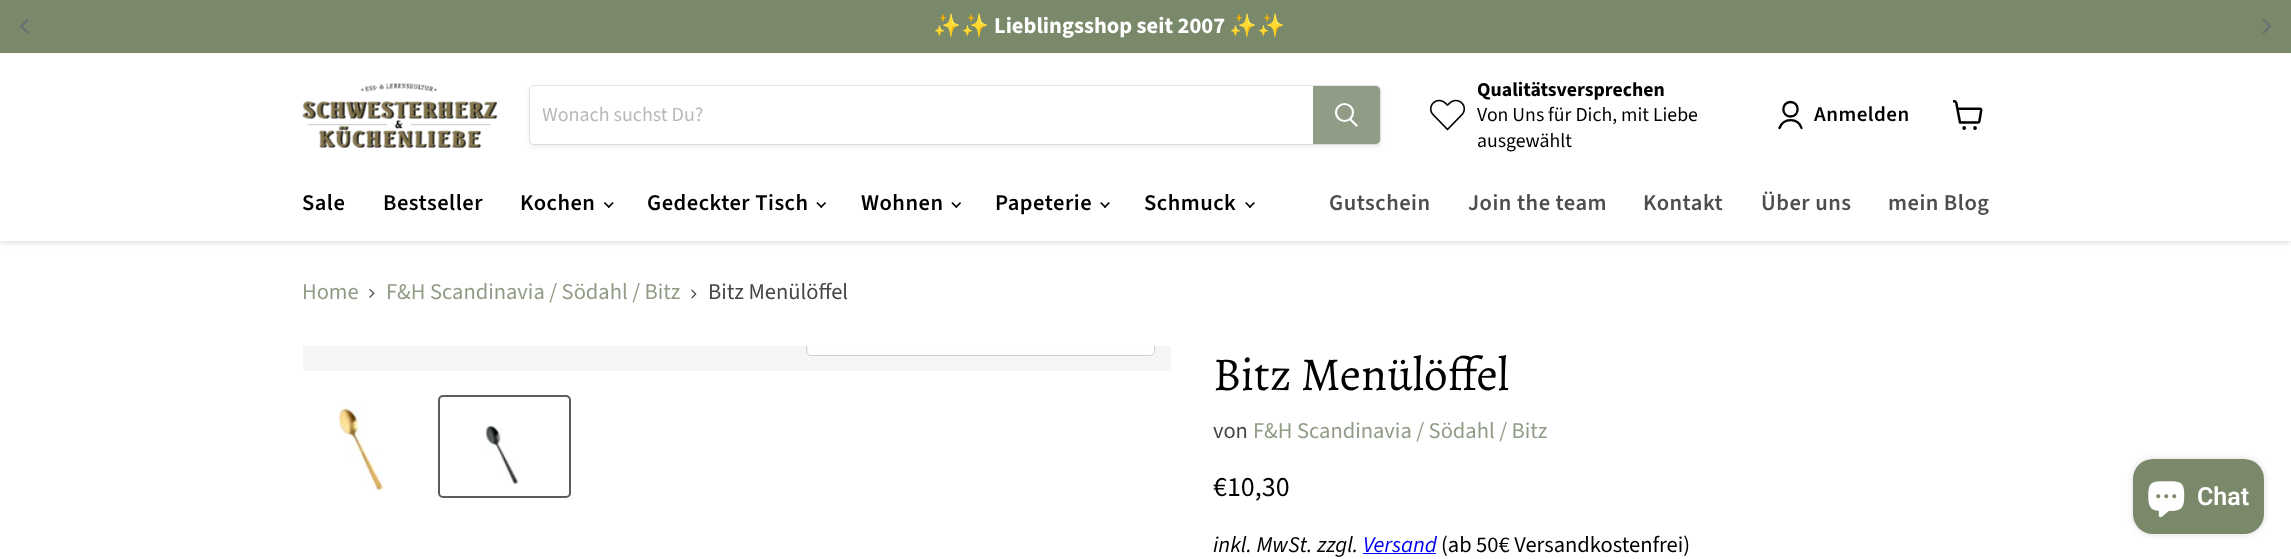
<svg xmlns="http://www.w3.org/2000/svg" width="2291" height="559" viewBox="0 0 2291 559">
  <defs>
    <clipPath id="clip1"><rect x="38" y="13" width="2216" height="27"/></clipPath>
    <clipPath id="clip2"><path d="M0 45H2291V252H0ZM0 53H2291V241H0Z" clip-rule="evenodd"/></clipPath>
    <filter id="blur1" x="-50%" y="-200%" width="200%" height="500%"><feGaussianBlur stdDeviation="2.5"/></filter>
    <filter id="blur2" x="-50%" y="-200%" width="200%" height="500%"><feGaussianBlur stdDeviation="2"/></filter>
    <clipPath id="clip3"><rect x="543" y="101" width="757" height="28"/></clipPath>
    <clipPath id="clip4"><rect x="303" y="346" width="868" height="25"/></clipPath>
    <filter id="blur3" x="-50%" y="-200%" width="200%" height="500%"><feGaussianBlur stdDeviation="3"/></filter>
  </defs>
  <rect width="100%" height="100%" fill="#ffffff"/>
  <rect x="0" y="0" width="2291" height="53" fill="#79896a"/>
  <g clip-path="url(#clip1)">
    <text x="933" y="33" font-family="Noto Color Emoji" font-size="22.5" font-weight="bold" fill="#ffffff">✨✨</text>
  </g>
  <text x="994" y="33" font-family="Source Sans Pro" font-size="22.5" font-weight="bold" fill="#ffffff">Lieblingsshop seit 2007</text>
  <g clip-path="url(#clip1)">
    <text x="1229" y="33" font-family="Noto Color Emoji" font-size="22.5" font-weight="bold" fill="#ffffff">✨✨</text>
  </g>
  <image x="20" y="18" width="9" height="16" href="img1.png"/>
  <image x="2262" y="18" width="9" height="16" href="img2.png"/>
  <g clip-path="url(#clip2)">
    <rect x="0" y="54" width="2291" height="189" fill="#808080" fill-opacity="0.25" filter="url(#blur1)"/>
  </g>
  <image x="302" y="83" width="196" height="65" href="img3.png"/>
  <rect x="529" y="88" width="852" height="60" rx="5" fill="#808080" fill-opacity="0.11" filter="url(#blur2)"/>
  <rect x="529.5" y="85.5" width="851" height="59" rx="4.5" fill="none" stroke="#808080" stroke-opacity="0.2"/>
  <path d="M534 86H1313V144H534C532 144 530 142 530 140V90C530 88 532 86 534 86Z" fill="#ffffff"/>
  <g clip-path="url(#clip3)">
    <text x="542" y="121" font-family="Source Sans Pro" font-size="20" fill="#b8b8b8">Wonach suchst Du?</text>
  </g>
  <path d="M1313.5 86.5H1376C1378 86.5 1379.5 88 1379.5 90V140C1379.5 142 1378 143.5 1376 143.5H1313.5Z" fill="#919c86" stroke="#919c86"/>
  <path d="M1356.5 125.5L1350.5 119.5" fill="none" stroke="#ffffff" stroke-width="2.2" stroke-linecap="round"/>
  <circle cx="1344.5" cy="112.5" r="8.5" fill="none" stroke="#ffffff" stroke-width="2.2"/>
  <image x="1430" y="99" width="35" height="32" href="img4.png"/>
  <text x="1477" y="96" font-family="Source Sans Pro" font-size="19.75" font-weight="bold" fill="#000000">Qualitätsversprechen</text>
  <text x="1477" y="121" font-family="Source Sans Pro" font-size="19.75" fill="#000000">Von Uns für Dich, mit Liebe</text>
  <text x="1477" y="147" font-family="Source Sans Pro" font-size="19.75" fill="#000000">ausgewählt</text>
  <path d="M1790.5 116.5C1800 116.5 1800 102 1790.5 102C1781 102 1781 116.5 1790.5 116.5ZM1801.5 128C1798 117.5 1783.5 117.5 1779.5 128" fill="none" stroke="#000000" stroke-width="2.3" stroke-linecap="round" stroke-linejoin="round"/>
  <text x="1814" y="121" font-family="Source Sans Pro" font-size="21" font-weight="600" letter-spacing="0.5" fill="#000000">Anmelden</text>
  <image x="1953" y="100" width="30" height="30" href="img5.png"/>
  <text x="302" y="210" font-family="Source Sans Pro" font-size="22.5" font-weight="600" letter-spacing="0.5" fill="#000000">Sale</text>
  <text x="383" y="210" font-family="Source Sans Pro" font-size="22.5" font-weight="600" letter-spacing="0.5" fill="#000000">Bestseller</text>
  <text x="520" y="210" font-family="Source Sans Pro" font-size="22.5" font-weight="600" letter-spacing="0.5" fill="#000000">Kochen</text>
  <image x="604" y="202" width="10" height="6" href="img6.png"/>
  <text x="647" y="210" font-family="Source Sans Pro" font-size="22.5" font-weight="600" letter-spacing="0.5" fill="#000000">Gedeckter Tisch</text>
  <image x="816" y="202" width="10" height="6" href="img7.png"/>
  <text x="861" y="210" font-family="Source Sans Pro" font-size="22.5" font-weight="600" letter-spacing="0.5" fill="#000000">Wohnen</text>
  <image x="951" y="202" width="10" height="6" href="img7.png"/>
  <text x="995" y="210" font-family="Source Sans Pro" font-size="22.5" font-weight="600" letter-spacing="0.5" fill="#000000">Papeterie</text>
  <image x="1100" y="202" width="10" height="6" href="img8.png"/>
  <text x="1144" y="210" font-family="Source Sans Pro" font-size="22.5" font-weight="600" letter-spacing="0.5" fill="#000000">Schmuck</text>
  <image x="1245" y="202" width="10" height="6" href="img8.png"/>
  <text x="1329" y="210" font-family="Source Sans Pro" font-size="22.5" font-weight="600" letter-spacing="0.5" fill="#4d4d4d">Gutschein</text>
  <text x="1468" y="210" font-family="Source Sans Pro" font-size="22.5" font-weight="600" letter-spacing="0.5" fill="#4d4d4d">Join the team</text>
  <text x="1643" y="210" font-family="Source Sans Pro" font-size="22.5" font-weight="600" letter-spacing="0.5" fill="#4d4d4d">Kontakt</text>
  <text x="1761" y="210" font-family="Source Sans Pro" font-size="22.5" font-weight="600" letter-spacing="0.5" fill="#4d4d4d">Über uns</text>
  <text x="1888" y="210" font-family="Source Sans Pro" font-size="22.5" font-weight="600" letter-spacing="0.5" fill="#4d4d4d">mein Blog</text>
  <text x="302" y="299" font-family="Source Sans Pro" font-size="22.5" fill="#919c86">Home</text>
  <image x="369" y="289" width="6" height="9" href="img9.png"/>
  <text x="386" y="299" font-family="Source Sans Pro" font-size="22.5" fill="#919c86">F&amp;H Scandinavia / Södahl / Bitz</text>
  <image x="691" y="289" width="6" height="10" href="img10.png"/>
  <text x="708" y="299" font-family="Source Sans Pro" font-size="22.5" fill="#464646">Bitz Menülöffel</text>
  <rect x="303" y="346" width="868" height="25" fill="#f5f5f5"/>
  <g clip-path="url(#clip4)">
    <rect x="806.5" y="316.5" width="348" height="39" rx="4.5" fill="none" stroke="#d0d0d0"/>
  </g>
  <path d="M808 346H1154V351C1154 353 1152 355 1150 355H812C810 355 808 353 808 351Z" fill="#ffffff" fill-opacity="0.9"/>
  <image x="337" y="407" width="47" height="84" href="img11.png"/>
  <rect x="439" y="396" width="131" height="101" rx="4" fill="none" stroke="#5c5c5c" stroke-width="2"/>
  <image x="486" y="425" width="33" height="59" href="img12.png"/>
  <text x="1213" y="390" font-family="Alegreya" font-size="47.25" fill="#000000">Bitz Menülöffel</text>
  <text x="1213" y="438" font-family="Source Sans Pro" font-size="22.5" fill="#464646">von</text>
  <text x="1253" y="438" font-family="Source Sans Pro" font-size="22.5" fill="#919c86">F&amp;H Scandinavia / Södahl / Bitz</text>
  <text x="1213" y="496" font-family="Source Sans Pro" font-size="28" fill="#000000">€10,30</text>
  <text x="1213" y="552" font-family="Source Sans Pro" font-size="22.5" font-style="italic" fill="#000000">inkl. MwSt. zzgl.</text>
  <text x="1363" y="552" font-family="Source Sans Pro" font-size="22.5" font-style="italic" fill="#0000ee">Versand</text>
  <rect x="1363" y="553" width="73" height="1" fill="#0000ee"/>
  <text x="1441" y="552" font-family="Source Sans Pro" font-size="22.5" fill="#000000">(ab 50€ Versandkostenfrei)</text>
  <rect x="2133" y="459" width="131" height="75" rx="20" fill="#000000" fill-opacity="0.15" filter="url(#blur3)"/>
  <rect x="2133" y="459" width="131" height="75" rx="20" fill="#79896a"/>
  <image x="2148" y="481" width="37" height="37" href="img13.png"/>
  <text x="2197" y="505" font-family="Roboto" font-size="25" font-weight="600" fill="#ffffff">Chat</text>
</svg>
